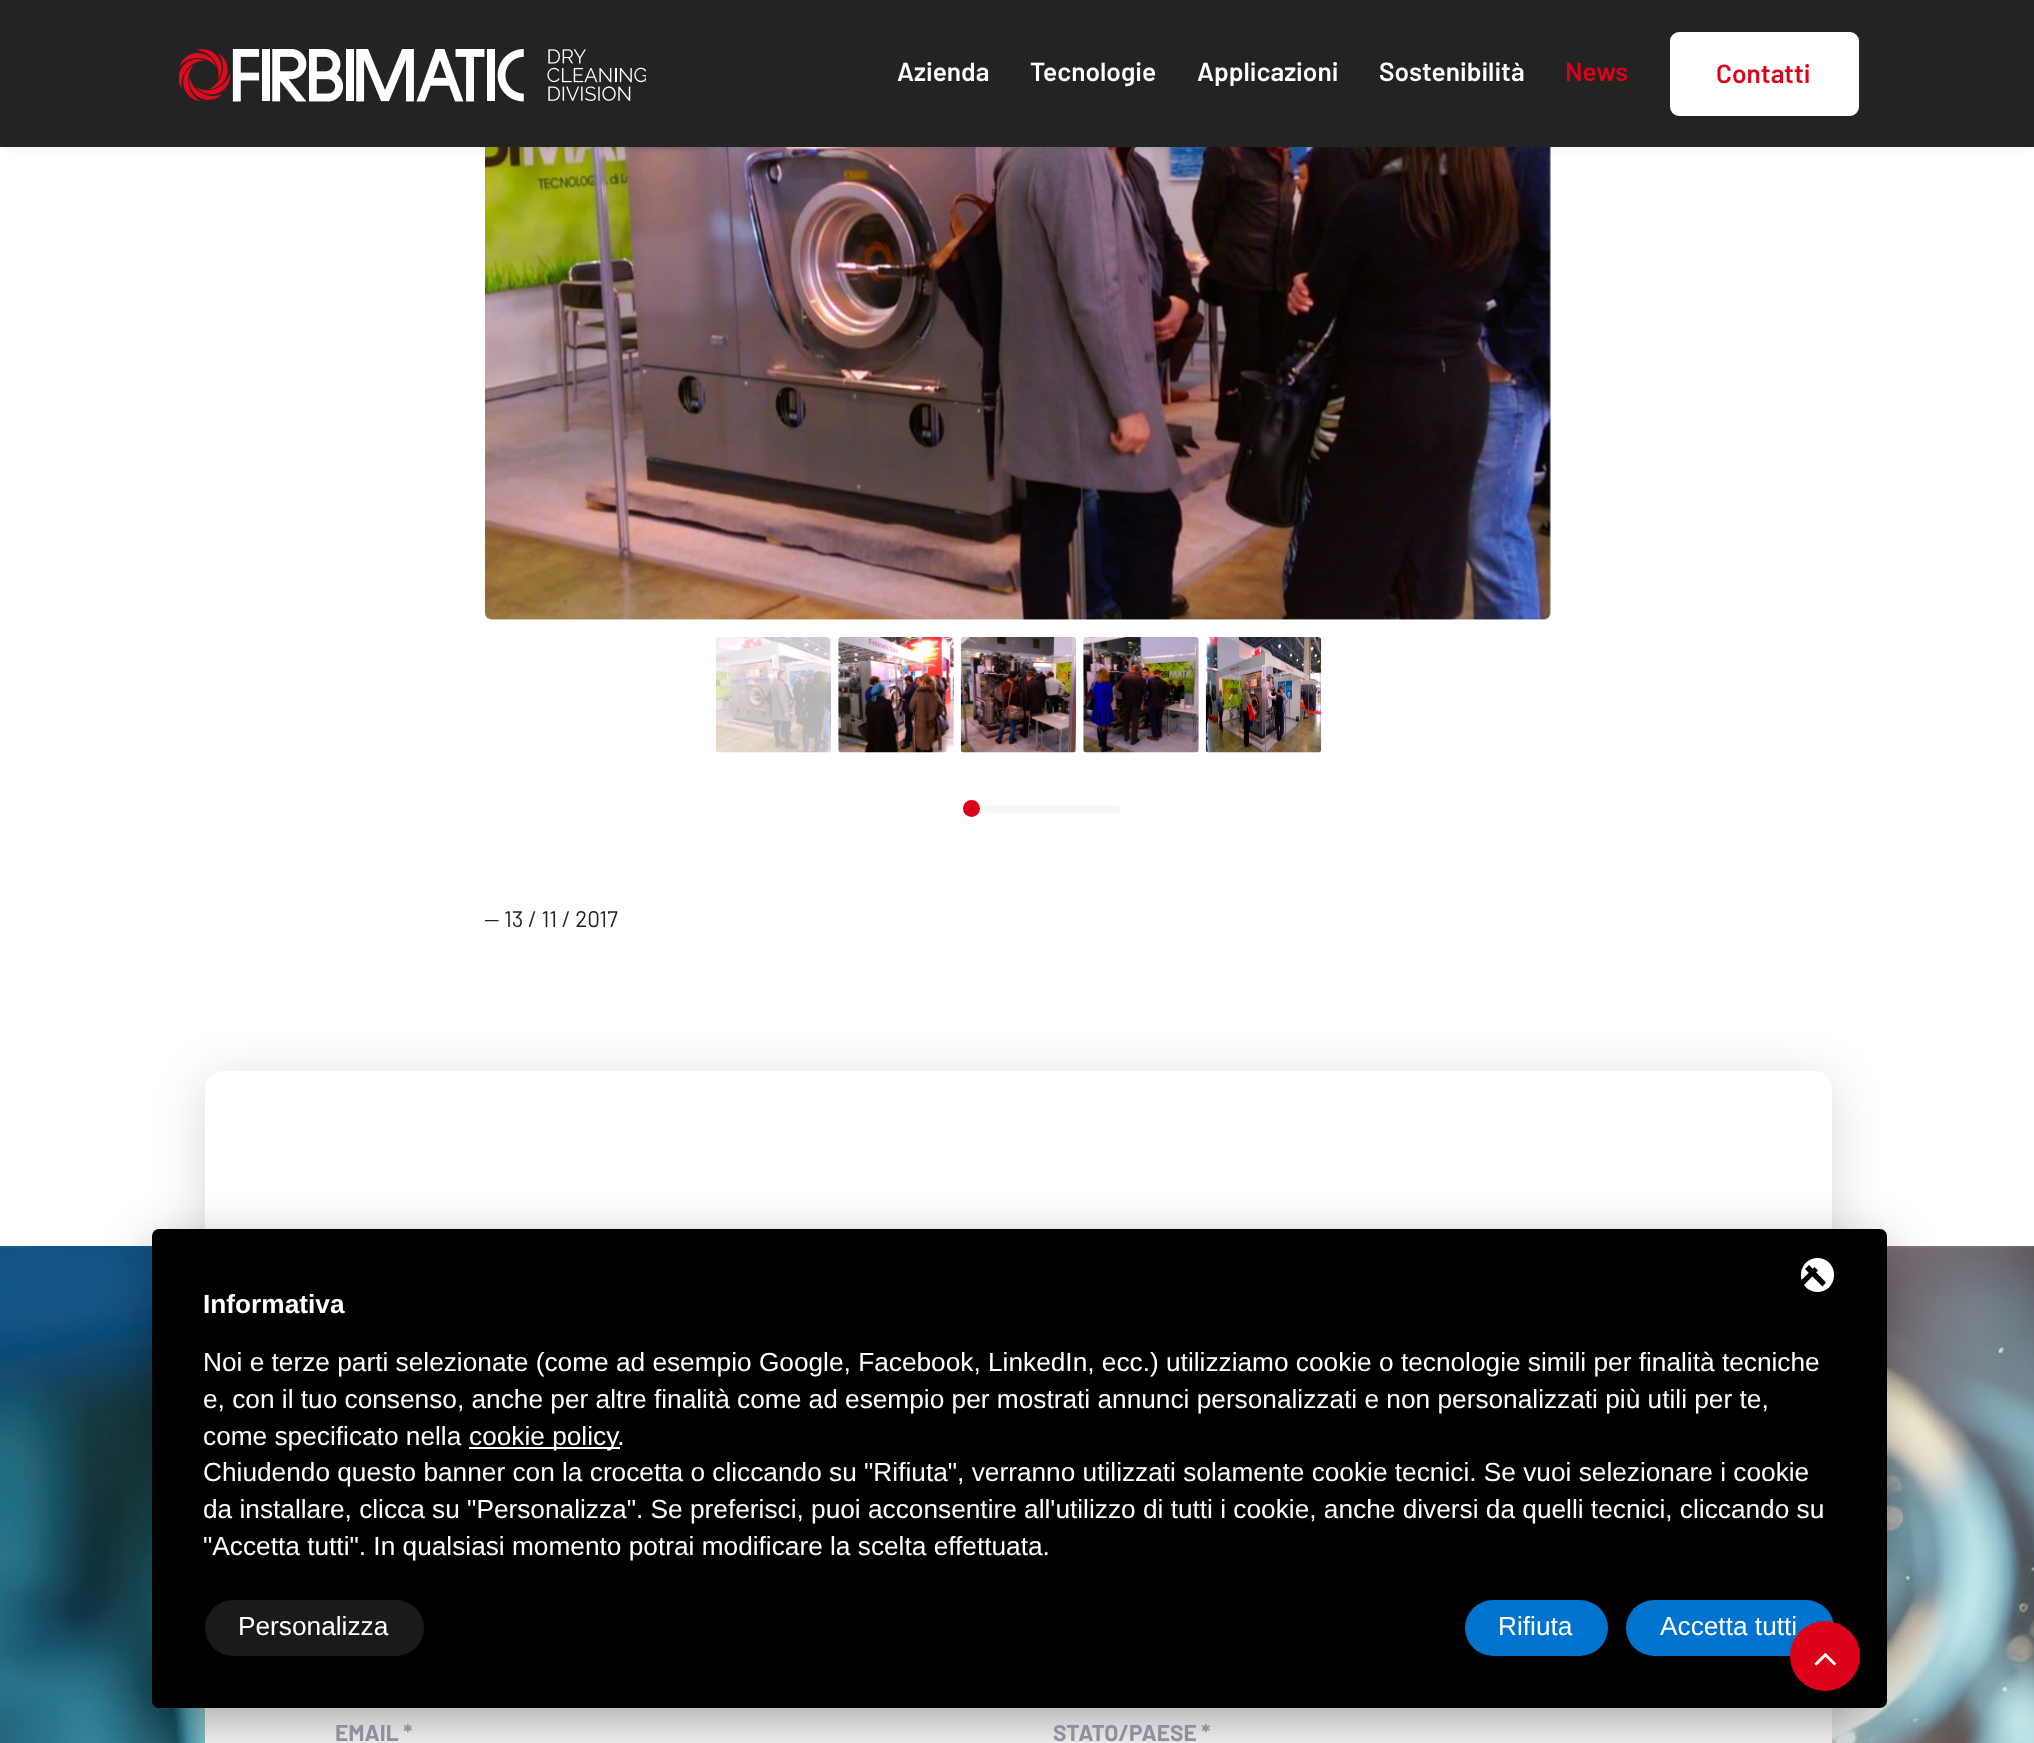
<svg xmlns="http://www.w3.org/2000/svg" width="2034" height="1743" viewBox="0 0 2034 1743">
  <defs>
    <filter id="blur1" x="-50%" y="-200%" width="200%" height="500%"><feGaussianBlur stdDeviation="4.5"/></filter>
    <filter id="blur2" x="-50%" y="-200%" width="200%" height="500%"><feGaussianBlur stdDeviation="26"/></filter>
  </defs>
  <rect width="100%" height="100%" fill="#ffffff"/>
  <image x="485" y="147" width="1066" height="473" href="img2.png"/>
  <rect x="4" y="7" width="2028" height="140" fill="#000000" fill-opacity="0.1" filter="url(#blur1)"/>
  <rect x="0" y="0" width="2034" height="147" fill="#232323"/>
  <image x="179" y="49" width="467" height="53" href="img1.png"/>
  <text x="897" y="81" font-family="Barlow" font-size="26.25" font-weight="600" fill="#ffffff">Azienda</text>
  <text x="1030" y="81" font-family="Barlow" font-size="26.25" font-weight="600" fill="#ffffff">Tecnologie</text>
  <text x="1197" y="81" font-family="Barlow" font-size="26.25" font-weight="600" fill="#ffffff">Applicazioni</text>
  <text x="1379" y="81" font-family="Barlow" font-size="26.25" font-weight="600" fill="#ffffff">Sostenibilità</text>
  <text x="1565" y="81" font-family="Barlow" font-size="26.25" font-weight="600" fill="#dd001b">News</text>
  <rect x="1672" y="34" width="185" height="80" rx="7" fill="#ffffff" stroke="#ffffff" stroke-width="4"/>
  <text x="1716" y="83" font-family="Barlow" font-size="26.25" font-weight="600" fill="#dd001b">Contatti</text>
  <image x="716" y="637" width="115" height="116" href="img3.png"/>
  <image x="838" y="637" width="116" height="116" href="img4.png"/>
  <image x="960" y="637" width="117" height="116" href="img5.png"/>
  <image x="1083" y="637" width="116" height="116" href="img6.png"/>
  <image x="1205" y="637" width="117" height="116" href="img7.png"/>
  <rect x="963" y="805" width="1" height="4" fill="#f7f7f7"/>
  <rect x="963" y="805" width="157" height="9" rx="4.5" fill="#f7f7f7"/>
  <circle cx="971.5" cy="808.5" r="8.5" fill="#dd001b"/>
  <text x="484" y="927" font-family="Barlow" font-size="22.5" fill="#232323">— 13 / 11 / 2017</text>
  <image x="0" y="1246" width="2034" height="497" href="img9.png"/>
  <rect x="205" y="1080" width="1627" height="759" rx="18" fill="#000000" fill-opacity="0.15" filter="url(#blur2)"/>
  <rect x="205" y="1071" width="1627" height="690" rx="18" fill="#ffffff"/>
  <rect x="152" y="1246" width="1735" height="480" rx="7" fill="#000000" fill-opacity="0.33" filter="url(#blur2)"/>
  <rect x="152" y="1229" width="1735" height="479" rx="7" fill="#000000"/>
  <rect x="1801" y="1258" width="33" height="34" rx="16.5" fill="#ffffff"/>
  <path d="M1805 1269L1809 1265L1826 1282.5L1822.5 1286.5Z" fill="#000000"/>
  <path d="M1814.5 1267L1818 1270.5L1803.5 1285.5L1799.5 1282Z" fill="#000000"/>
  <text x="203" y="1313" font-family="Liberation Sans" font-size="26.25" font-weight="bold" fill="#ffffff">Informativa</text>
  <text x="203" y="1371" font-family="Liberation Sans" font-size="26.25" fill="#ffffff">Noi e terze parti selezionate (come ad esempio Google, Facebook, LinkedIn, ecc.) utilizziamo cookie o tecnologie simili per finalità tecniche</text>
  <text x="203" y="1408" font-family="Liberation Sans" font-size="26.25" fill="#ffffff">e, con il tuo consenso, anche per altre finalità come ad esempio per mostrati annunci personalizzati e non personalizzati più utili per te,</text>
  <text x="203" y="1445" font-family="Liberation Sans" font-size="26.25" fill="#ffffff">come specificato nella</text>
  <rect x="469" y="1447" width="151" height="2" fill="#ffffff"/>
  <text x="469" y="1445" font-family="Liberation Sans" font-size="26.25" fill="#ffffff">cookie policy.</text>
  <text x="203" y="1481" font-family="Liberation Sans" font-size="26.25" fill="#ffffff">Chiudendo questo banner con la crocetta o cliccando su "Rifiuta", verranno utilizzati solamente cookie tecnici. Se vuoi selezionare i cookie</text>
  <text x="203" y="1518" font-family="Liberation Sans" font-size="26.25" fill="#ffffff">da installare, clicca su "Personalizza". Se preferisci, puoi acconsentire all'utilizzo di tutti i cookie, anche diversi da quelli tecnici, cliccando su</text>
  <text x="203" y="1555" font-family="Liberation Sans" font-size="26.25" fill="#ffffff">"Accetta tutti". In qualsiasi momento potrai modificare la scelta effettuata.</text>
  <rect x="205" y="1600" width="219" height="56" rx="28" fill="#1a1a1a"/>
  <text x="238" y="1635" font-family="Liberation Sans" font-size="26.25" fill="#ffffff">Personalizza</text>
  <rect x="1465" y="1600" width="143" height="56" rx="28" fill="#0073ce"/>
  <text x="1498" y="1635" font-family="Liberation Sans" font-size="26.25" fill="#ffffff">Rifiuta</text>
  <rect x="1626" y="1600" width="208" height="56" rx="28" fill="#0073ce"/>
  <text x="1660" y="1635" font-family="Liberation Sans" font-size="26.25" fill="#ffffff">Accetta tutti</text>
  <circle cx="1825" cy="1656" r="35" fill="#dd001b"/>
  <image x="1814" y="1653" width="22" height="13" href="img8.png"/>
  <text x="335" y="1741" font-family="Barlow" font-size="22.75" font-weight="bold" fill="#8f8f9d">EMAIL *</text>
  <text x="1053" y="1741" font-family="Barlow" font-size="22.75" font-weight="bold" fill="#8f8f9d">STATO/PAESE *</text>
</svg>
